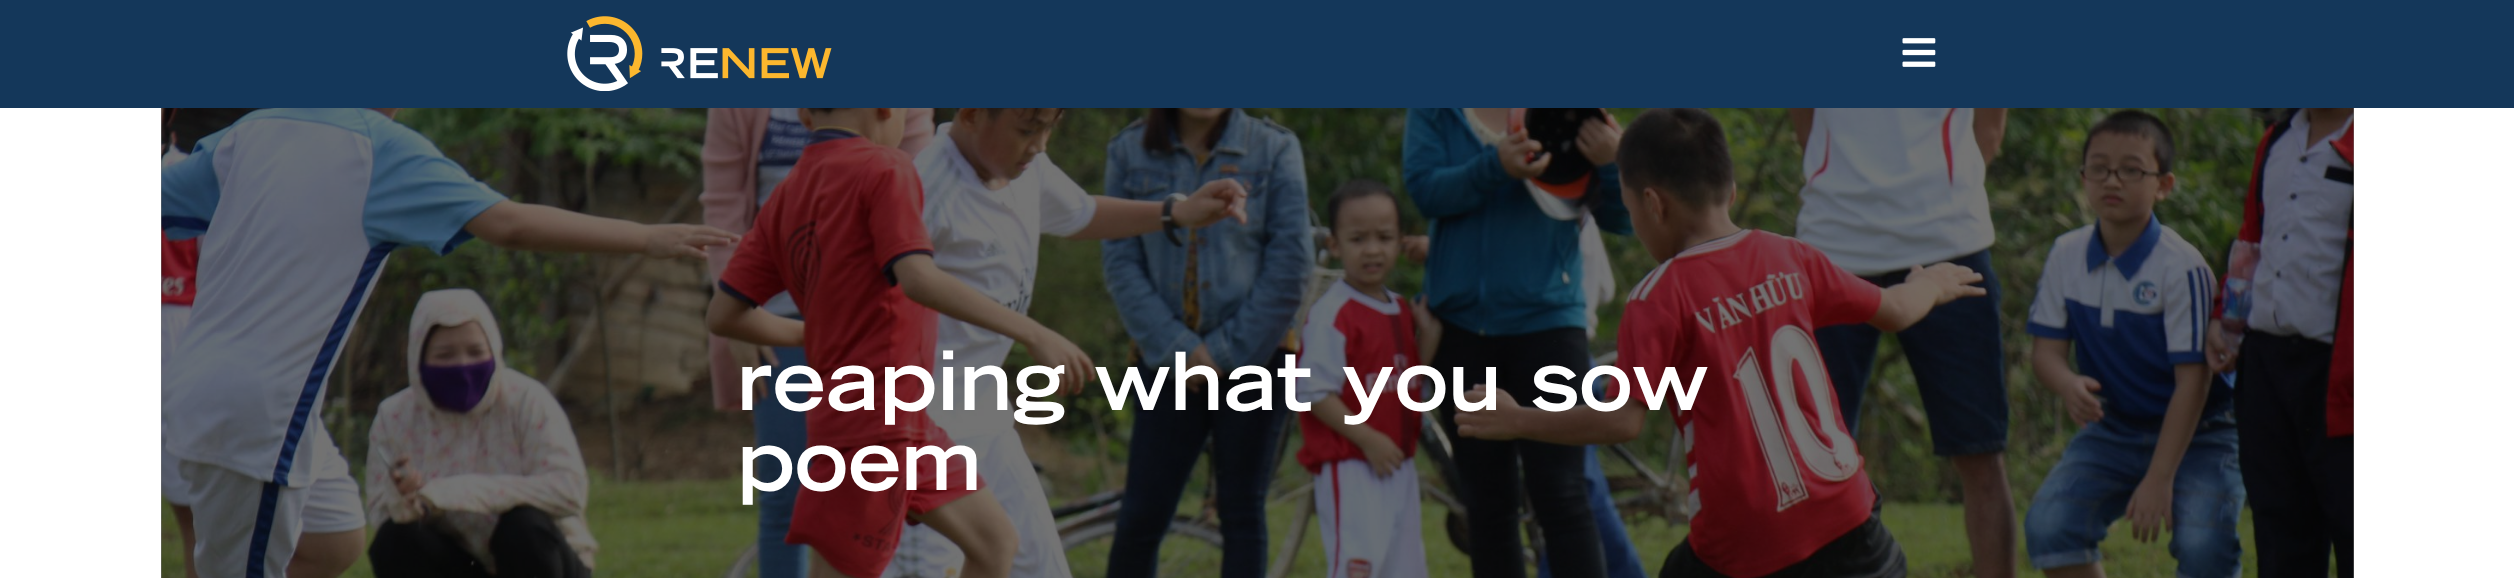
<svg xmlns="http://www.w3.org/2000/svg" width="2514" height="578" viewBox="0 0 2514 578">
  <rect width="100%" height="100%" fill="#ffffff"/>
  <rect x="161" y="108" width="2193" height="470" fill="#737373"/>
  <rect x="0" y="0" width="2514" height="108" fill="#14375a"/>
  <image x="567" y="16" width="265" height="75" href="img1.png"/>
  <image x="1902" y="38" width="34" height="29" href="img2.png"/>
  <image x="161" y="108" width="2193" height="470" href="img3.png"/>
  <text x="737" y="410" font-family="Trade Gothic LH" font-size="80" font-weight="bold" fill="#ffffff">reaping what you sow</text>
  <text x="737" y="490" font-family="Trade Gothic LH" font-size="80" font-weight="bold" fill="#ffffff">poem</text>
</svg>
